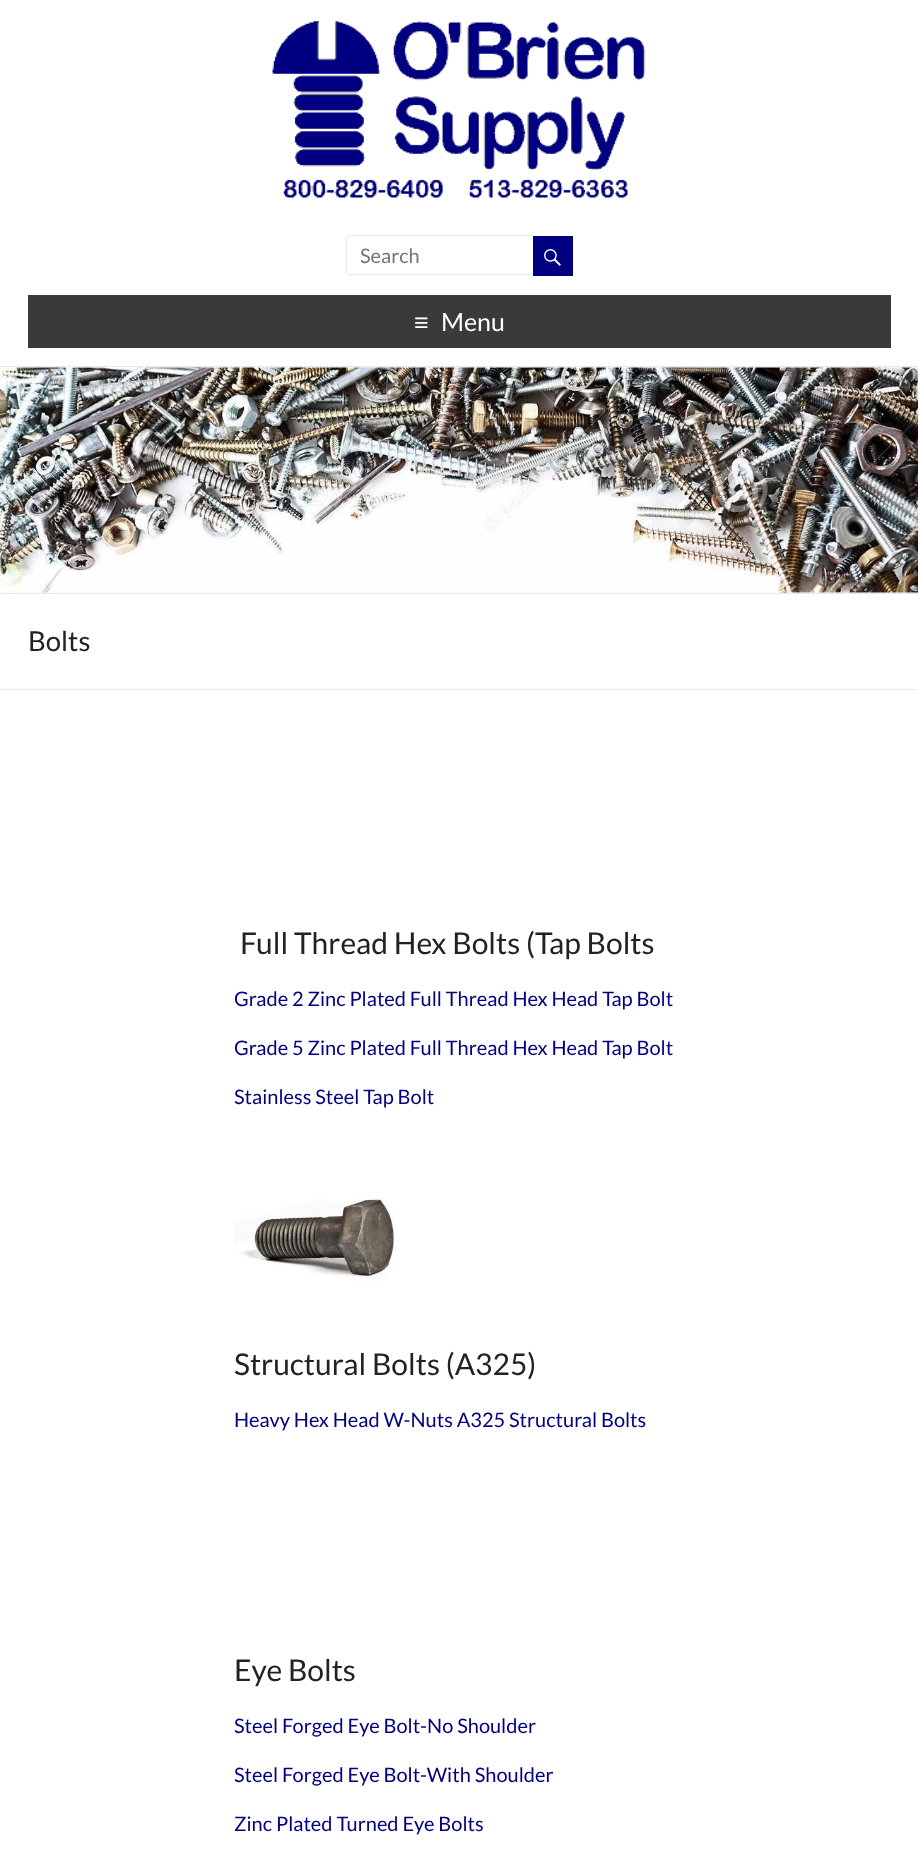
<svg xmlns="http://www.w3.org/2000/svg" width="918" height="1855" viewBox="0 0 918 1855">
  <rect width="100%" height="100%" fill="#ffffff"/>
  <rect x="0" y="366" width="918" height="1" fill="#eaeaea"/>
  <image x="272" y="21" width="374" height="177" href="img1.png"/>
  <rect x="346.5" y="235.5" width="189" height="39" rx="3.5" fill="none" stroke="#eaeaea"/>
  <text x="360" y="263" font-family="Lato" font-size="20" fill="#757575">Search</text>
  <rect x="533" y="236" width="40" height="40" fill="#010080"/>
  <image x="544" y="249" width="17" height="17" href="img2.png"/>
  <rect x="28" y="295" width="863" height="53" fill="#3a3a3a"/>
  <text x="414" y="331" font-family="Liberation Sans" font-size="25" fill="#ffffff">≡</text>
  <text x="441" y="331" font-family="Lato" font-size="25" fill="#ffffff">Menu</text>
  <image x="0" y="367" width="918" height="226" href="img3.png"/>
  <rect x="0" y="593" width="918" height="1" fill="#eaeaea"/>
  <rect x="0" y="689" width="918" height="1" fill="#eaeaea"/>
  <text x="28" y="651" font-family="Lato" font-size="27.5" fill="#222222">Bolts</text>
  <text x="240" y="954" font-family="Lato" font-size="30" fill="#222222">Full Thread Hex Bolts (Tap Bolts</text>
  <text x="234" y="1006" font-family="Lato" font-size="20" fill="#010080">Grade 2 Zinc Plated Full Thread Hex Head Tap Bolt</text>
  <text x="234" y="1055" font-family="Lato" font-size="20" fill="#010080">Grade 5 Zinc Plated Full Thread Hex Head Tap Bolt</text>
  <text x="234" y="1104" font-family="Lato" font-size="20" fill="#010080">Stainless Steel Tap Bolt</text>
  <image x="234" y="1199" width="162" height="83" href="img4.png"/>
  <text x="234" y="1375" font-family="Lato" font-size="30" fill="#222222">Structural Bolts (A325)</text>
  <text x="234" y="1427" font-family="Lato" font-size="20" fill="#010080">Heavy Hex Head W-Nuts A325 Structural Bolts</text>
  <text x="234" y="1681" font-family="Lato" font-size="30" fill="#222222">Eye Bolts</text>
  <text x="234" y="1733" font-family="Lato" font-size="20" fill="#010080">Steel Forged Eye Bolt-No Shoulder</text>
  <text x="234" y="1782" font-family="Lato" font-size="20" fill="#010080">Steel Forged Eye Bolt-With Shoulder</text>
  <text x="234" y="1831" font-family="Lato" font-size="20" fill="#010080">Zinc Plated Turned Eye Bolts</text>
</svg>
